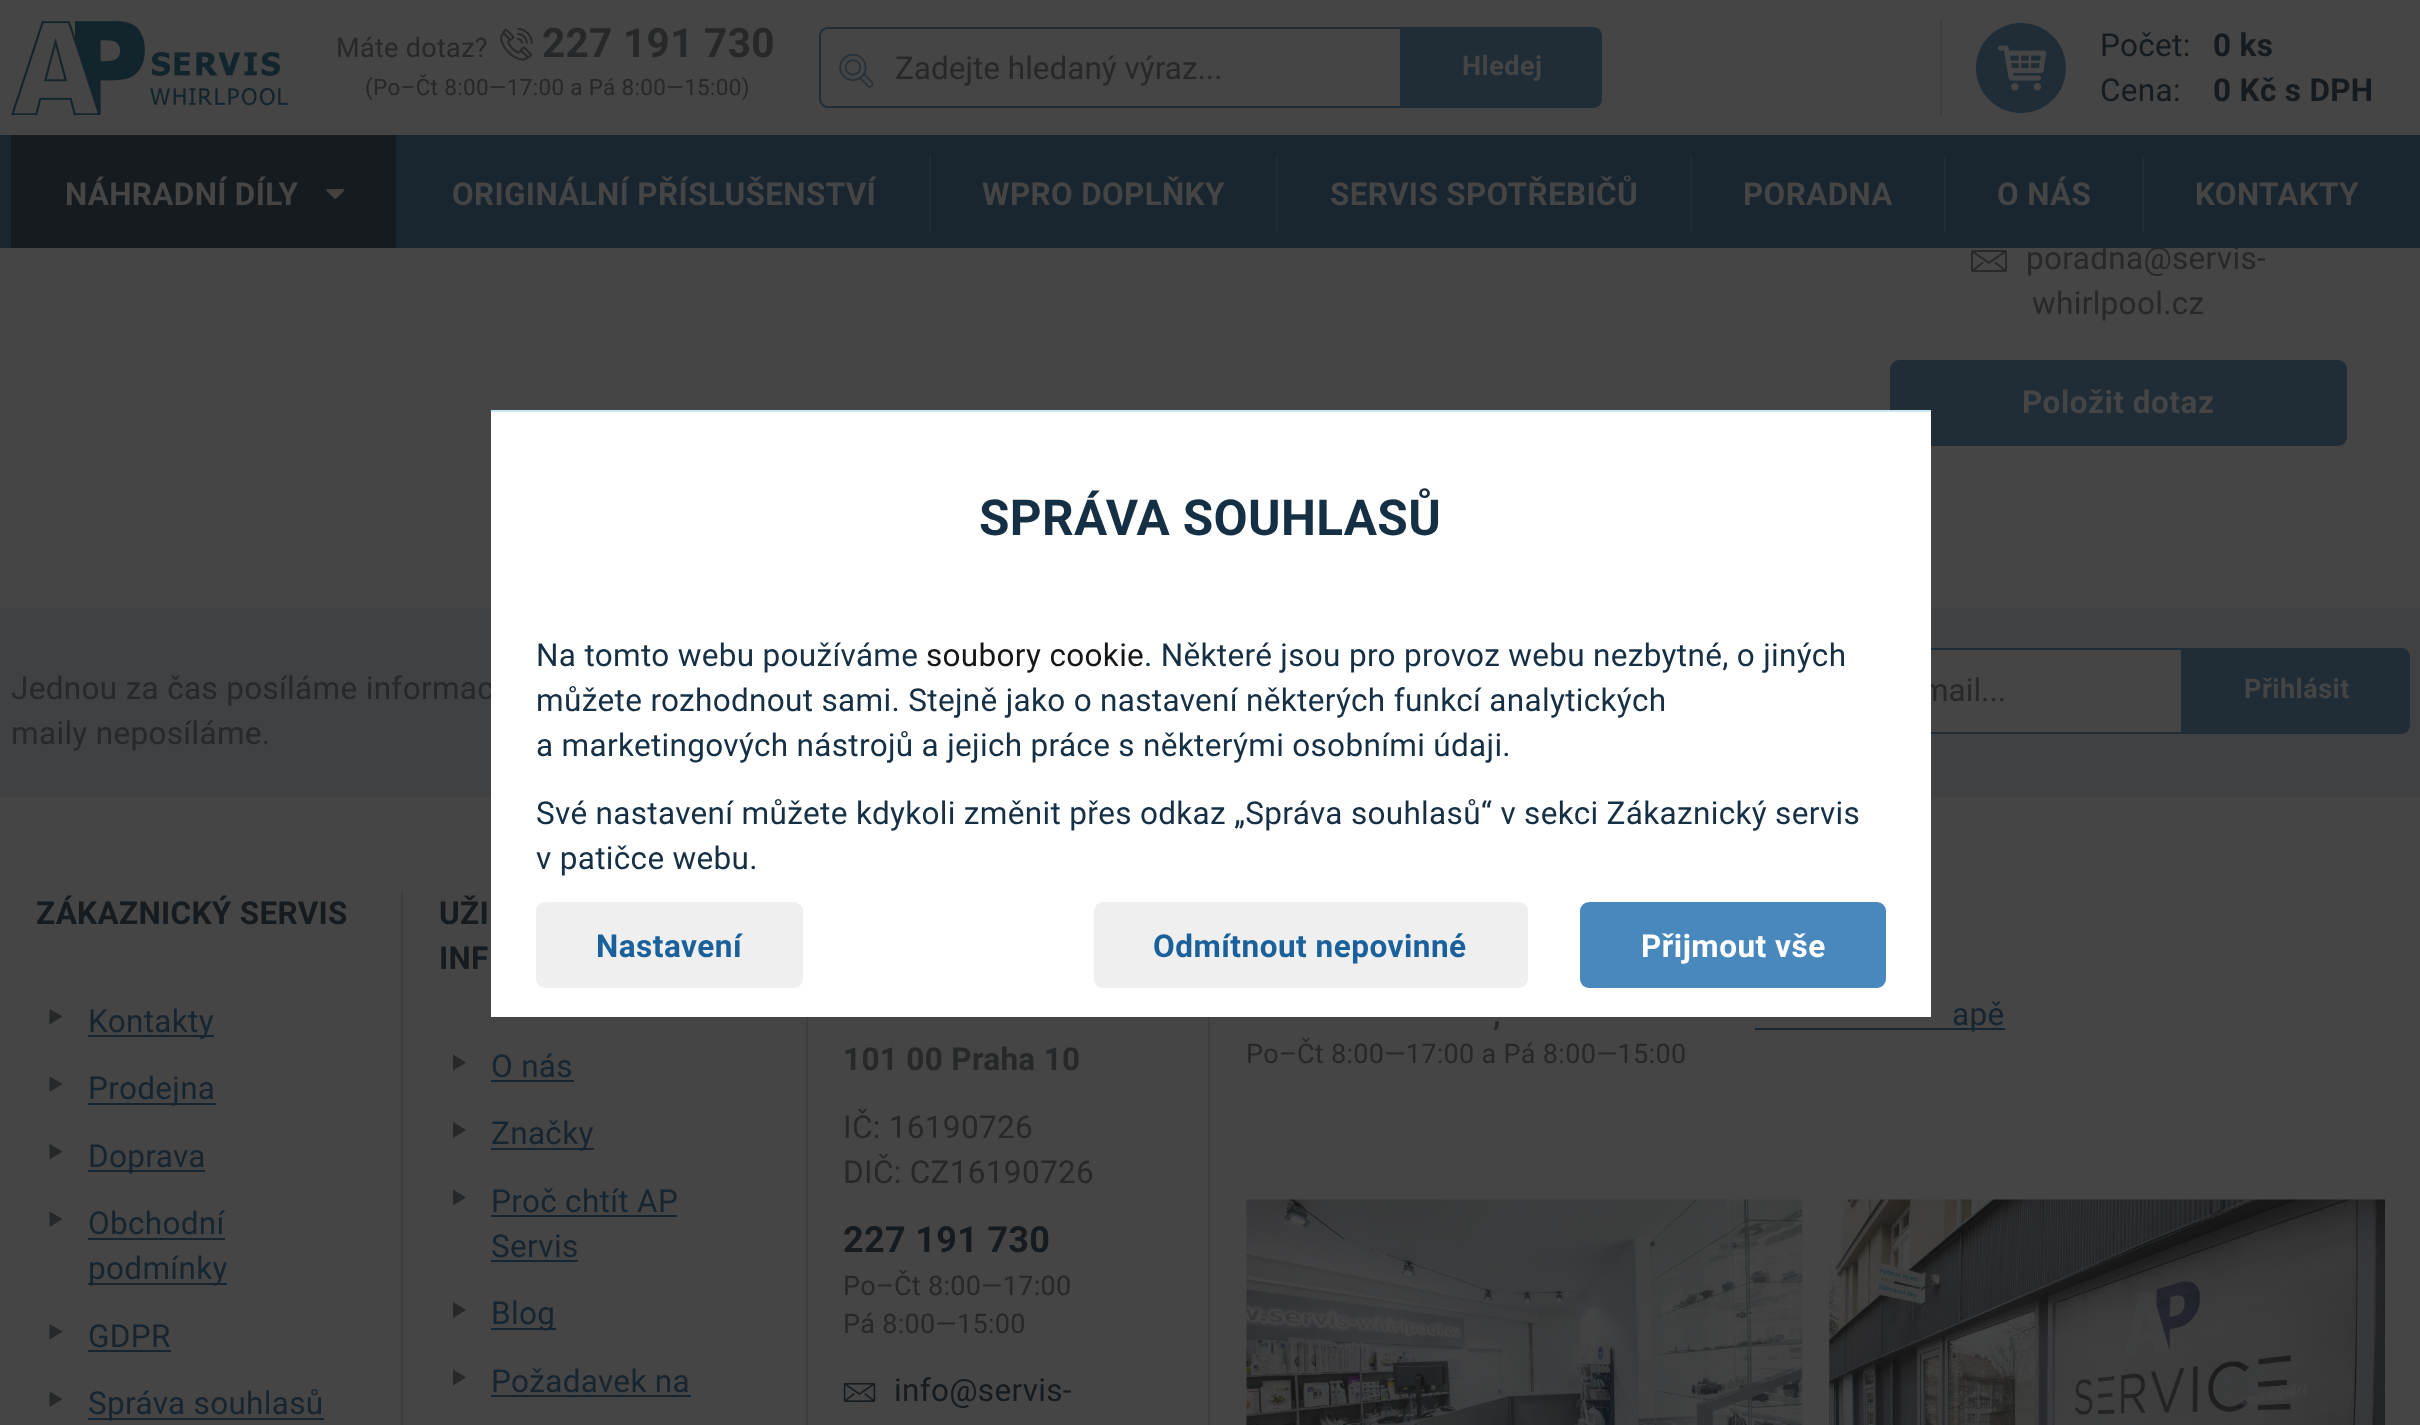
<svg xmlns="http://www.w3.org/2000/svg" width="2420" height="1425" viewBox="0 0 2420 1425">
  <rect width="100%" height="100%" fill="#454545"/>
  <text x="336" y="57" font-family="Roboto" font-size="27" letter-spacing="0.32" fill="#272829">Máte dotaz?</text>
  <image x="500" y="28" width="33" height="33" href="img1.png"/>
  <text x="542" y="57" font-family="Roboto" font-size="40.5" font-weight="bold" letter-spacing="0.32" fill="#272829">227 191 730</text>
  <text x="365" y="95" font-family="Roboto" font-size="22.5" letter-spacing="0.32" fill="#272829">(Po–Čt 8:00—17:00 a Pá 8:00—15:00)</text>
  <image x="11" y="21" width="277" height="94" href="img2.png"/>
  <path d="M828 28H1401V107H828C823.5 107 820 103.5 820 99V36C820 31.5 823.5 28 828 28Z" fill="none" stroke="#202d37" stroke-width="2"/>
  <image x="839" y="53" width="35" height="35" href="img3.png"/>
  <text x="895" y="79" font-family="Roboto" font-size="31.5" fill="#272829">Zadejte hledaný výraz...</text>
  <path d="M1402 27H1593C1598 27 1602 31 1602 36V99C1602 104 1598 108 1593 108H1402Z" fill="#202d37"/>
  <text x="1462" y="75" font-family="Roboto" font-size="27" font-weight="bold" letter-spacing="0.5" fill="#454545">Hledej</text>
  <rect x="1940" y="20" width="2" height="95" fill="#3c3f40"/>
  <circle cx="2021" cy="68" r="45" fill="#202d37"/>
  <image x="1998" y="45" width="49" height="46" href="img4.png"/>
  <text x="2100" y="56" font-family="Roboto" font-size="31.5" letter-spacing="0.32" fill="#161b1f">Počet:</text>
  <text x="2213" y="56" font-family="Roboto" font-size="31.5" font-weight="bold" letter-spacing="0.32" fill="#161b1f">0 ks</text>
  <text x="2100" y="101" font-family="Roboto" font-size="31.5" letter-spacing="0.32" fill="#161b1f">Cena:</text>
  <text x="2213" y="101" font-family="Roboto" font-size="31.5" font-weight="bold" letter-spacing="0.32" fill="#161b1f">0 Kč s DPH</text>
  <text x="2026" y="269" font-family="Roboto" font-size="31.5" letter-spacing="0.32" fill="#272829">poradna@servis-</text>
  <rect x="396" y="135" width="2024" height="113" fill="#19252f"/>
  <rect x="0" y="135" width="11" height="113" fill="#19252f"/>
  <rect x="11" y="135" width="385" height="113" fill="#161b1f"/>
  <text x="65" y="205" font-family="Roboto" font-size="31.5" font-weight="bold" letter-spacing="0.32" fill="#454545">NÁHRADNÍ DÍLY</text>
  <image x="326" y="189" width="19" height="11" href="img5.png"/>
  <text x="452" y="205" font-family="Roboto" font-size="31.5" font-weight="bold" letter-spacing="0.32" fill="#454545">ORIGINÁLNÍ PŘÍSLUŠENSTVÍ</text>
  <rect x="929" y="155" width="2" height="77" fill="#202b33"/>
  <text x="982" y="205" font-family="Roboto" font-size="31.5" font-weight="bold" letter-spacing="0.32" fill="#454545">WPRO DOPLŇKY</text>
  <rect x="1276" y="155" width="2" height="77" fill="#202b33"/>
  <text x="1330" y="205" font-family="Roboto" font-size="31.5" font-weight="bold" letter-spacing="0.32" fill="#454545">SERVIS SPOTŘEBIČŮ</text>
  <rect x="1690" y="155" width="2" height="77" fill="#202b33"/>
  <text x="1743" y="205" font-family="Roboto" font-size="31.5" font-weight="bold" letter-spacing="0.32" fill="#454545">PORADNA</text>
  <rect x="1944" y="155" width="2" height="77" fill="#202b33"/>
  <text x="1997" y="205" font-family="Roboto" font-size="31.5" font-weight="bold" letter-spacing="0.32" fill="#454545">O NÁS</text>
  <rect x="2142" y="155" width="2" height="77" fill="#202b33"/>
  <text x="2195" y="205" font-family="Roboto" font-size="31.5" font-weight="bold" letter-spacing="0.32" fill="#454545">KONTAKTY</text>
  <image x="1971" y="250" width="36" height="22" href="img6.png"/>
  <text x="2032" y="314" font-family="Roboto" font-size="31.5" letter-spacing="0.32" fill="#272829">whirlpool.cz</text>
  <rect x="1890" y="360" width="457" height="86" rx="9" fill="#202d37"/>
  <text x="2022" y="413" font-family="Roboto" font-size="31.5" font-weight="bold" letter-spacing="0.5" fill="#454545">Položit dotaz</text>
  <rect x="0" y="608" width="2420" height="189" fill="#404142"/>
  <text x="11" y="699" font-family="Roboto" font-size="31.5" letter-spacing="0.32" fill="#272829">Jednou za čas posíláme informac</text>
  <rect x="1931" y="650" width="250" height="82" fill="#454545"/>
  <rect x="1691" y="649" width="491" height="84" fill="none" stroke="#202d37" stroke-width="2"/>
  <text x="1921" y="701" font-family="Roboto" font-size="31.5" fill="#272829">mail...</text>
  <rect x="491" y="412" width="1440" height="605" fill="#ffffff"/>
  <rect x="491" y="410" width="1440" height="2" fill="#cce5f3"/>
  <text x="979" y="535" font-family="Roboto" font-size="49.5" font-weight="bold" letter-spacing="0.32" fill="#152f45">SPRÁVA SOUHLASŮ</text>
  <text x="536" y="666" font-family="Roboto" font-size="31.5" letter-spacing="0.32" fill="#152f45">Na tomto webu používáme</text>
  <text x="926" y="666" font-family="Roboto" font-size="31.5" letter-spacing="0.32" fill="#161616">soubory cookie</text>
  <text x="1144" y="666" font-family="Roboto" font-size="31.5" letter-spacing="0.32" fill="#152f45">. Některé jsou pro provoz webu nezbytné, o jiných</text>
  <text x="536" y="711" font-family="Roboto" font-size="31.5" letter-spacing="0.32" fill="#152f45">můžete rozhodnout sami. Stejně jako o nastavení některých funkcí analytických</text>
  <text x="536" y="756" font-family="Roboto" font-size="31.5" letter-spacing="0.32" fill="#152f45">a marketingových nástrojů a jejich práce s některými osobními údaji.</text>
  <text x="536" y="824" font-family="Roboto" font-size="31.5" letter-spacing="0.32" fill="#152f45">Své nastavení můžete kdykoli změnit přes odkaz „Správa souhlasů“ v sekci Zákaznický servis</text>
  <text x="536" y="869" font-family="Roboto" font-size="31.5" letter-spacing="0.32" fill="#152f45">v patičce webu.</text>
  <rect x="536" y="902" width="267" height="86" rx="9" fill="#efefef"/>
  <text x="596" y="957" font-family="Roboto" font-size="31.5" font-weight="bold" letter-spacing="0.5" fill="#1a619b">Nastavení</text>
  <rect x="1094" y="902" width="434" height="86" rx="9" fill="#efefef"/>
  <text x="1153" y="957" font-family="Roboto" font-size="31.5" font-weight="bold" letter-spacing="0.5" fill="#1a619b">Odmítnout nepovinné</text>
  <rect x="1580" y="902" width="306" height="86" rx="9" fill="#4988bc"/>
  <text x="1641" y="957" font-family="Roboto" font-size="31.5" font-weight="bold" letter-spacing="0.5" fill="#ffffff">Přijmout vše</text>
  <text x="11" y="744" font-family="Roboto" font-size="31.5" letter-spacing="0.32" fill="#272829">maily neposíláme.</text>
  <path d="M2183 648H2401C2406 648 2410 652 2410 657V725C2410 730 2406 734 2401 734H2183Z" fill="#202d37"/>
  <text x="2244" y="698" font-family="Roboto" font-size="27" font-weight="bold" letter-spacing="0.5" fill="#454545">Přihlásit</text>
  <rect x="401" y="891" width="2" height="534" fill="#3c3f40"/>
  <text x="36" y="924" font-family="Roboto" font-size="31.5" font-weight="bold" letter-spacing="0.32" fill="#161b1f">ZÁKAZNICKÝ SERVIS</text>
  <path d="M49.5 1009L62.5 1016.5L49.5 1024.5Z" fill="#272829"/>
  <rect x="88" y="1035" width="126" height="2" fill="#172531"/>
  <text x="88" y="1032" font-family="Roboto" font-size="31.5" letter-spacing="0.32" fill="#172531">Kontakty</text>
  <path d="M49.5 1076.5L62.5 1084L49.5 1092Z" fill="#272829"/>
  <rect x="88" y="1103" width="128" height="2" fill="#172531"/>
  <text x="88" y="1099" font-family="Roboto" font-size="31.5" letter-spacing="0.32" fill="#172531">Prodejna</text>
  <path d="M49.5 1144L62.5 1151.5L49.5 1159.5Z" fill="#272829"/>
  <rect x="88" y="1170" width="117" height="2" fill="#172531"/>
  <text x="88" y="1167" font-family="Roboto" font-size="31.5" letter-spacing="0.32" fill="#172531">Doprava</text>
  <path d="M49.5 1211.5L62.5 1219L49.5 1227Z" fill="#272829"/>
  <text x="88" y="1234" font-family="Roboto" font-size="31.5" letter-spacing="0.32" fill="#172531">Obchodní</text>
  <rect x="88" y="1238" width="137" height="2" fill="#172531"/>
  <rect x="88" y="1283" width="139" height="2" fill="#172531"/>
  <text x="88" y="1279" font-family="Roboto" font-size="31.5" letter-spacing="0.32" fill="#172531">podmínky</text>
  <path d="M49.5 1324L62.5 1331.5L49.5 1339.5Z" fill="#272829"/>
  <text x="88" y="1347" font-family="Roboto" font-size="31.5" letter-spacing="0.32" fill="#172531">GDPR</text>
  <rect x="88" y="1350" width="83" height="2" fill="#172531"/>
  <path d="M49.5 1391.5L62.5 1399L49.5 1407Z" fill="#272829"/>
  <rect x="88" y="1418" width="236" height="2" fill="#172531"/>
  <text x="88" y="1414" font-family="Roboto" font-size="31.5" letter-spacing="0.32" fill="#172531">Správa souhlasů</text>
  <rect x="806" y="1017" width="2" height="408" fill="#3c3f40"/>
  <text x="439" y="924" font-family="Roboto" font-size="31.5" font-weight="bold" letter-spacing="0.32" fill="#161b1f">UŽI</text>
  <text x="439" y="969" font-family="Roboto" font-size="31.5" font-weight="bold" letter-spacing="0.32" fill="#161b1f">INF</text>
  <path d="M453 1054.5L466 1062.5L453 1070.5Z" fill="#272829"/>
  <text x="491" y="1077" font-family="Roboto" font-size="31.5" letter-spacing="0.32" fill="#172531">O nás</text>
  <rect x="491" y="1080" width="83" height="2" fill="#172531"/>
  <path d="M453 1122L466 1130L453 1138Z" fill="#272829"/>
  <rect x="491" y="1148" width="103" height="2" fill="#172531"/>
  <text x="491" y="1144" font-family="Roboto" font-size="31.5" letter-spacing="0.32" fill="#172531">Značky</text>
  <path d="M453 1189.5L466 1197.5L453 1205.5Z" fill="#272829"/>
  <text x="491" y="1212" font-family="Roboto" font-size="31.5" letter-spacing="0.32" fill="#172531">Proč chtít AP</text>
  <rect x="491" y="1215" width="186" height="2" fill="#172531"/>
  <text x="491" y="1257" font-family="Roboto" font-size="31.5" letter-spacing="0.32" fill="#172531">Servis</text>
  <rect x="491" y="1260" width="87" height="2" fill="#172531"/>
  <path d="M453 1302L466 1310L453 1318Z" fill="#272829"/>
  <rect x="491" y="1328" width="65" height="2" fill="#172531"/>
  <text x="491" y="1324" font-family="Roboto" font-size="31.5" letter-spacing="0.32" fill="#172531">Blog</text>
  <path d="M453 1369.5L466 1377.5L453 1385.5Z" fill="#272829"/>
  <text x="491" y="1392" font-family="Roboto" font-size="31.5" letter-spacing="0.32" fill="#172531">Požadavek na</text>
  <rect x="491" y="1395" width="200" height="2" fill="#172531"/>
  <text x="1493" y="1025" font-family="Roboto" font-size="31.5" font-weight="bold" letter-spacing="0.32" fill="#272829">,</text>
  <rect x="1755" y="1028" width="250" height="2" fill="#172531"/>
  <text x="1952" y="1025" font-family="Roboto" font-size="31.5" letter-spacing="0.32" fill="#172531">apě</text>
  <text x="1246" y="1063" font-family="Roboto" font-size="27" letter-spacing="0.32" fill="#272829">Po–Čt 8:00—17:00 a Pá 8:00—15:00</text>
  <image x="1246" y="1199" width="557" height="226" href="img7.png"/>
  <image x="1829" y="1199" width="556" height="226" href="img8.png"/>
  <rect x="1208" y="1017" width="2" height="408" fill="#3c3f40"/>
  <text x="843" y="1070" font-family="Roboto" font-size="31.5" font-weight="bold" letter-spacing="0.32" fill="#272829">101 00 Praha 10</text>
  <text x="843" y="1138" font-family="Roboto" font-size="31.5" letter-spacing="0.32" fill="#272829">IČ: 16190726</text>
  <text x="843" y="1183" font-family="Roboto" font-size="31.5" letter-spacing="0.32" fill="#272829">DIČ: CZ16190726</text>
  <text x="843" y="1252" font-family="Roboto" font-size="36" font-weight="bold" letter-spacing="0.32" fill="#161b1f">227 191 730</text>
  <text x="843" y="1295" font-family="Roboto" font-size="27" letter-spacing="0.32" fill="#272829">Po–Čt 8:00—17:00</text>
  <text x="843" y="1333" font-family="Roboto" font-size="27" letter-spacing="0.32" fill="#272829">Pá 8:00—15:00</text>
  <image x="843" y="1382" width="33" height="21" href="img9.png"/>
  <text x="894" y="1401" font-family="Roboto" font-size="31.5" letter-spacing="0.32" fill="#161b1f">info@servis-</text>
</svg>
